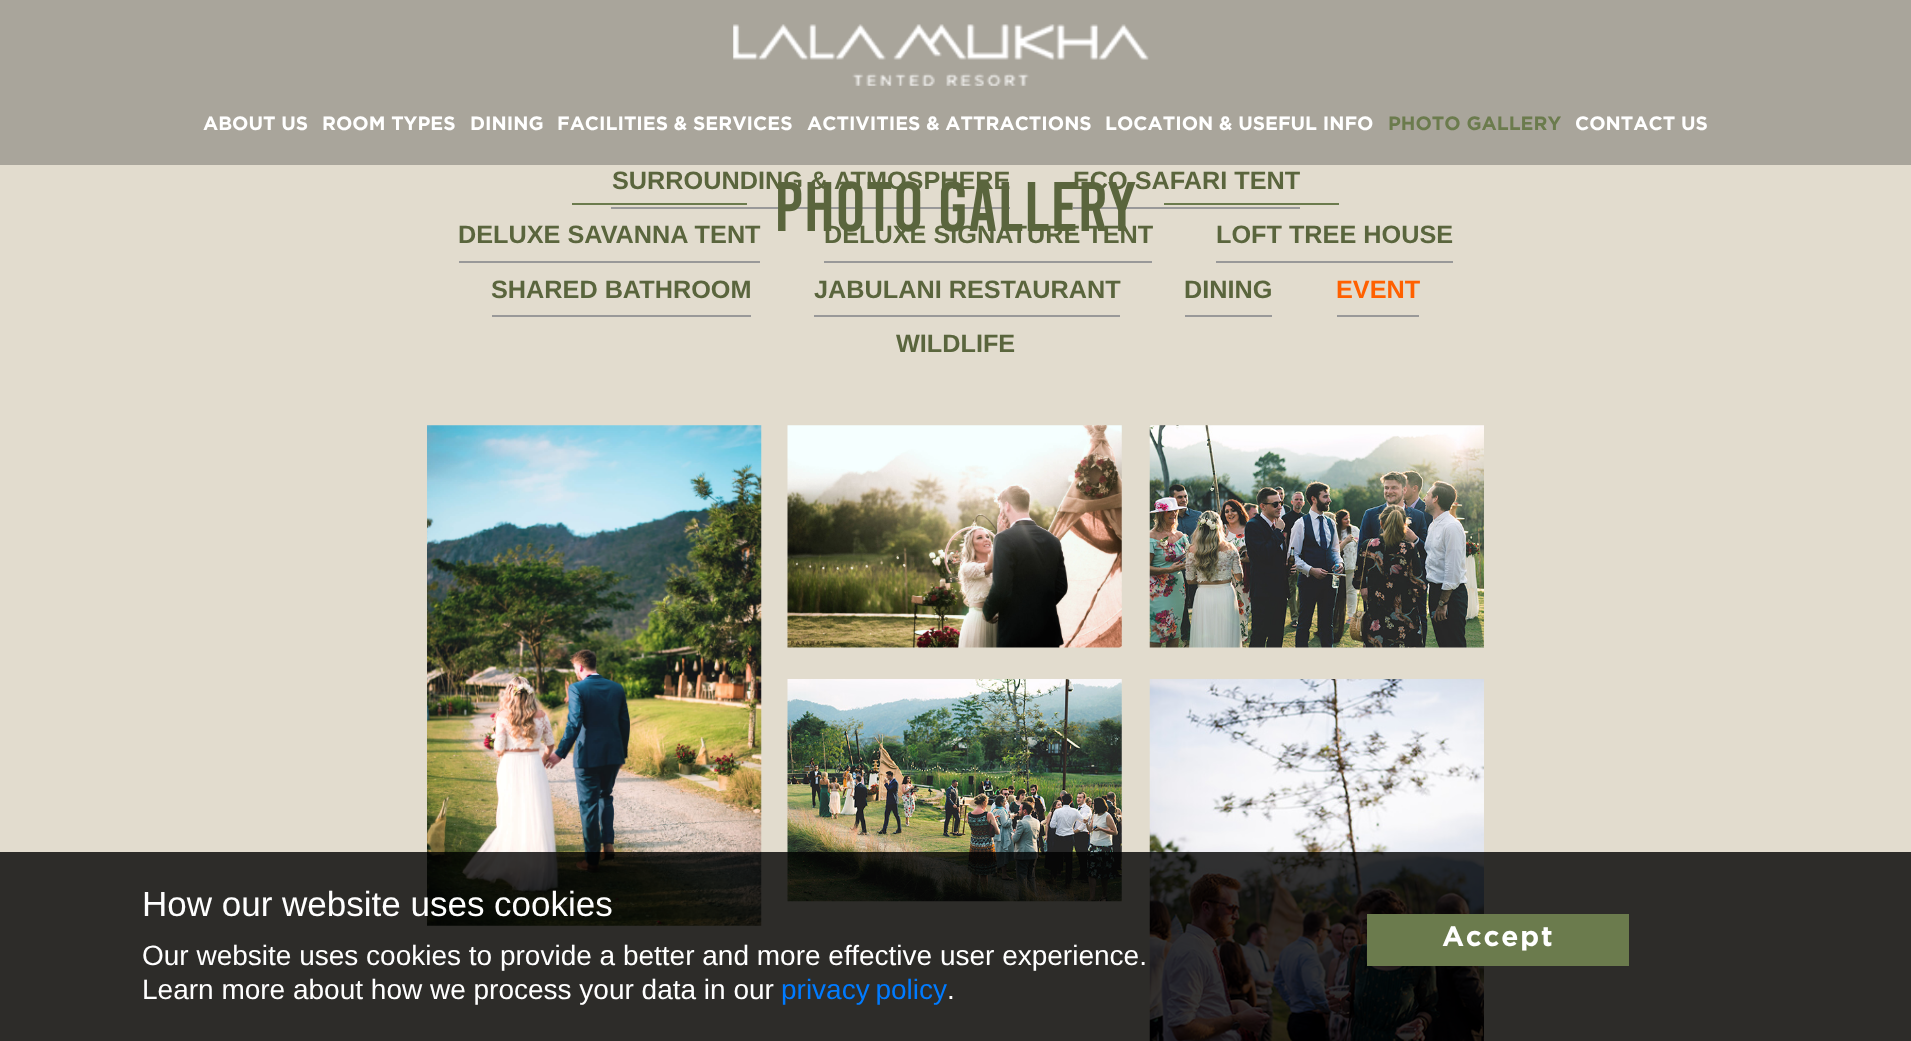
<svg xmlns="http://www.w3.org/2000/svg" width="1911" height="1041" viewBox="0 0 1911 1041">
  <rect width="100%" height="100%" fill="#e2dcce"/>
  <rect x="0" y="0" width="1911" height="165" fill="#a9a59b"/>
  <image x="733" y="24" width="416" height="62" href="img1.png"/>
  <text x="203" y="130" font-family="Gotham" font-size="19.25" font-weight="bold" fill="#ffffff">ABOUT US</text>
  <text x="322" y="130" font-family="Gotham" font-size="19.25" font-weight="bold" fill="#ffffff">ROOM TYPES</text>
  <text x="470" y="130" font-family="Gotham" font-size="19.25" font-weight="bold" fill="#ffffff">DINING</text>
  <text x="557" y="130" font-family="Gotham" font-size="19.25" font-weight="bold" fill="#ffffff">FACILITIES &amp; SERVICES</text>
  <text x="807" y="130" font-family="Gotham" font-size="19.25" font-weight="bold" fill="#ffffff">ACTIVITIES &amp; ATTRACTIONS</text>
  <text x="1105" y="130" font-family="Gotham" font-size="19.25" font-weight="bold" fill="#ffffff">LOCATION &amp; USEFUL INFO</text>
  <text x="1388" y="130" font-family="Gotham" font-size="19.25" font-weight="bold" fill="#6b7b4d">PHOTO GALLERY</text>
  <text x="1575" y="130" font-family="Gotham" font-size="19.25" font-weight="bold" fill="#ffffff">CONTACT US</text>
  <rect x="611" y="207" width="399" height="2" fill="#999999"/>
  <text x="612" y="189" font-family="Liberation Sans" font-size="25.25" font-weight="bold" fill="#5a653d">SURROUNDING &amp; ATMOSPHERE</text>
  <rect x="1073" y="207" width="227" height="2" fill="#999999"/>
  <text x="1073" y="189" font-family="Liberation Sans" font-size="25.25" font-weight="bold" fill="#5a653d">ECO SAFARI TENT</text>
  <rect x="459" y="261" width="301" height="2" fill="#999999"/>
  <text x="458" y="243" font-family="Liberation Sans" font-size="25.25" font-weight="bold" fill="#5a653d">DELUXE SAVANNA TENT</text>
  <rect x="824" y="261" width="328" height="2" fill="#999999"/>
  <text x="824" y="243" font-family="Liberation Sans" font-size="25.25" font-weight="bold" fill="#5a653d">DELUXE SIGNATURE TENT</text>
  <rect x="1216" y="261" width="237" height="2" fill="#999999"/>
  <text x="1216" y="243" font-family="Liberation Sans" font-size="25.25" font-weight="bold" fill="#5a653d">LOFT TREE HOUSE</text>
  <rect x="492" y="315" width="259" height="2" fill="#999999"/>
  <text x="491" y="298" font-family="Liberation Sans" font-size="25.25" font-weight="bold" fill="#5a653d">SHARED BATHROOM</text>
  <rect x="814" y="315" width="306" height="2" fill="#999999"/>
  <text x="814" y="298" font-family="Liberation Sans" font-size="25.25" font-weight="bold" fill="#5a653d">JABULANI RESTAURANT</text>
  <rect x="1185" y="315" width="87" height="2" fill="#999999"/>
  <text x="1184" y="298" font-family="Liberation Sans" font-size="25.25" font-weight="bold" fill="#5a653d">DINING</text>
  <rect x="1337" y="315" width="82" height="2" fill="#999999"/>
  <text x="1336" y="298" font-family="Liberation Sans" font-size="25.25" font-weight="bold" fill="#ff6000">EVENT</text>
  <text x="896" y="352" font-family="Liberation Sans" font-size="25.25" font-weight="bold" fill="#5a653d">WILDLIFE</text>
  <rect x="572" y="203" width="175" height="2" fill="#6b7b4d"/>
  <text x="774" y="231" font-family="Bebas" font-size="70" fill="#5a653d">PHOTO GALLERY</text>
  <rect x="1164" y="203" width="175" height="2" fill="#6b7b4d"/>
  <image x="427" y="425" width="335" height="501" href="img2.png"/>
  <image x="787" y="425" width="335" height="223" href="img3.png"/>
  <image x="1149" y="425" width="335" height="223" href="img4.png"/>
  <image x="787" y="679" width="335" height="223" href="img5.png"/>
  <image x="1149" y="679" width="335" height="362" href="img6.png"/>
  <rect x="0" y="852" width="1911" height="189" fill="#000000" fill-opacity="0.8"/>
  <text x="142" y="916" font-family="Liberation Sans" font-size="35" fill="#ffffff">How our website uses cookies</text>
  <text x="142" y="965" font-family="Liberation Sans" font-size="28" fill="#ffffff">Our website uses cookies to provide a better and more effective user experience.</text>
  <text x="142" y="999" font-family="Liberation Sans" font-size="28" fill="#ffffff">Learn more about how we process your data in our</text>
  <text x="781" y="999" word-spacing="-2" font-family="Liberation Sans" font-size="28" fill="#007bff">privacy policy</text>
  <text x="947" y="999" font-family="Liberation Sans" font-size="28" fill="#ffffff">.</text>
  <rect x="1367" y="914" width="262" height="52" fill="#6b7b4d"/>
  <text x="1442" y="946" font-family="Gotham" font-size="28" font-weight="bold" letter-spacing="1.75" fill="#ffffff">Accept</text>
</svg>
